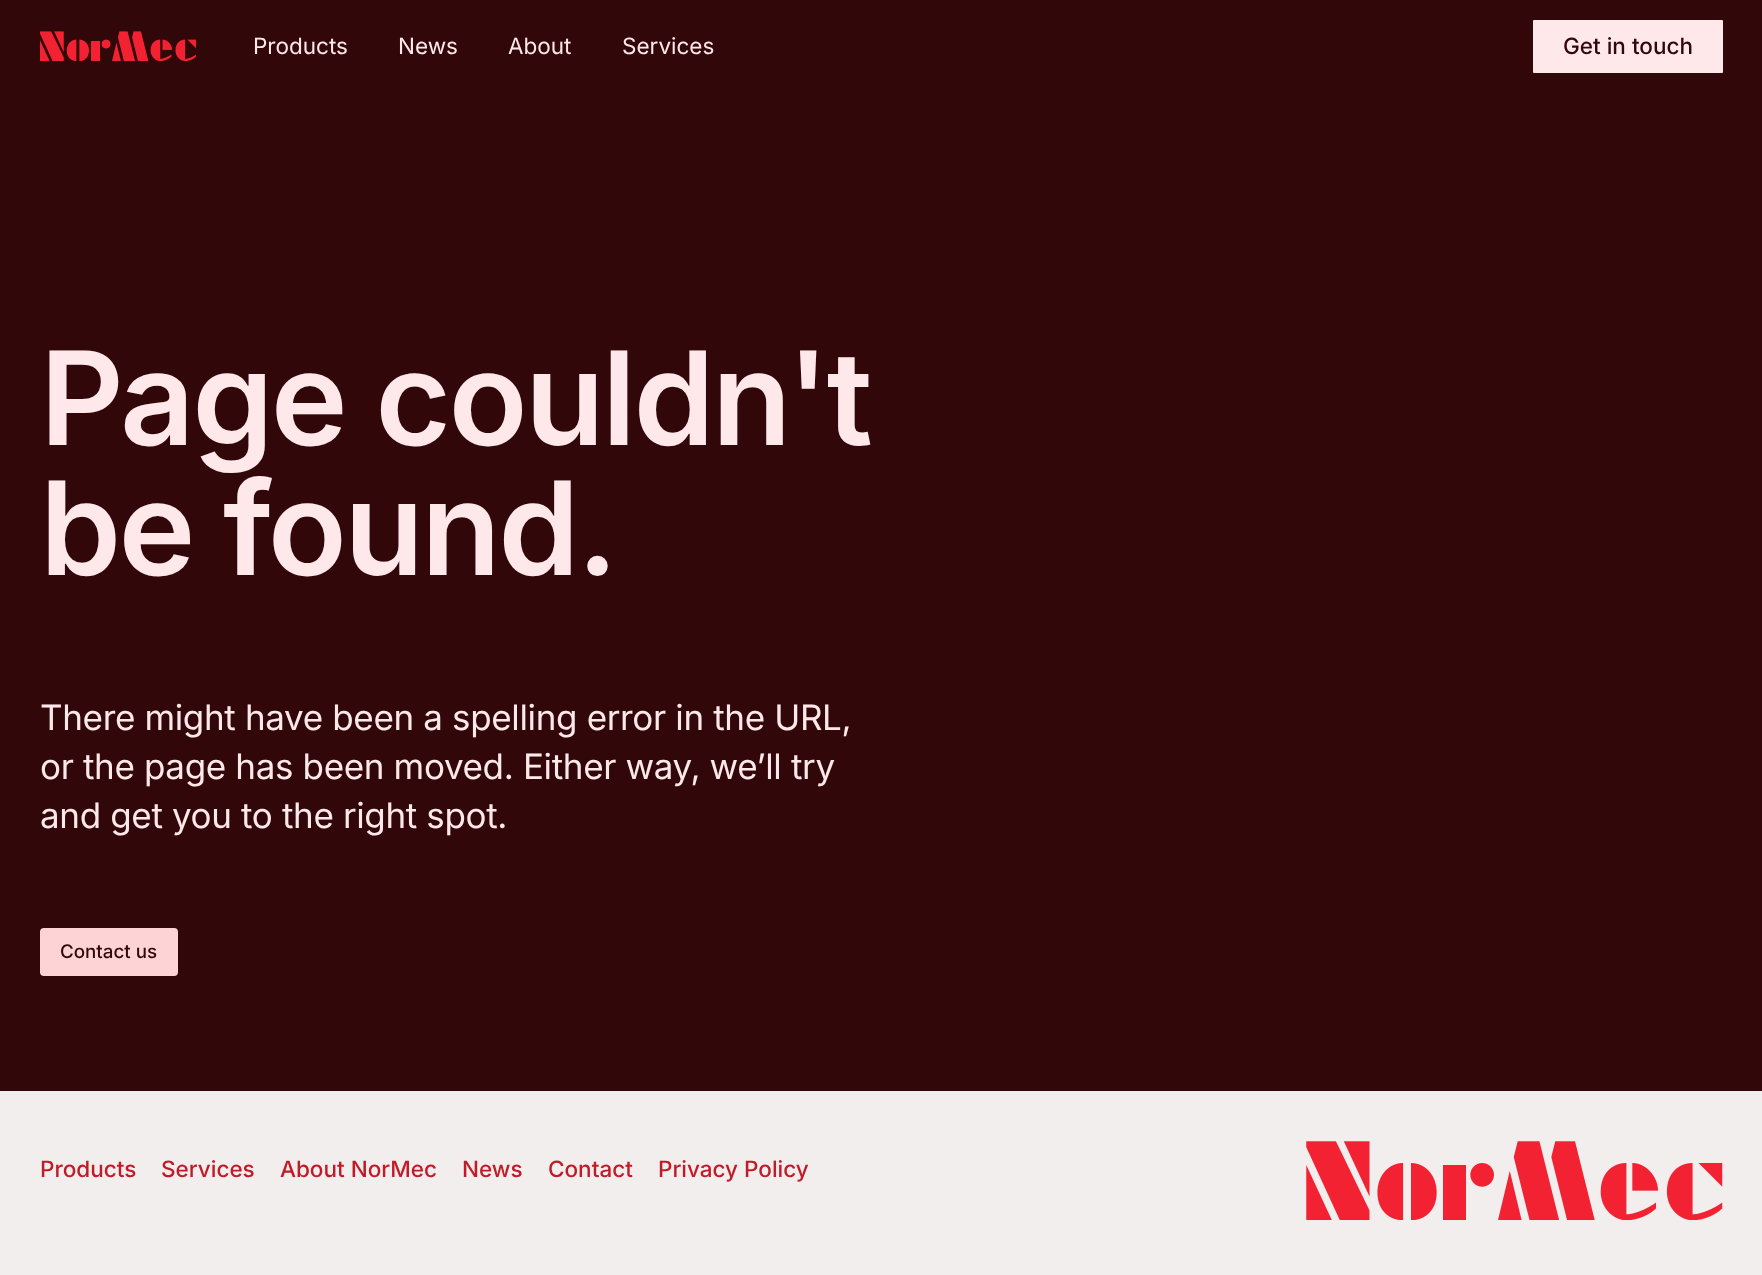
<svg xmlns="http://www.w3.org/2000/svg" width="1762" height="1275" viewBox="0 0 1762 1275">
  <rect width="100%" height="100%" fill="#31070a"/>
  <image x="40" y="31" width="156" height="31" href="img1.png"/>
  <text x="253" y="54" font-family="Inter" font-size="22.5" fill="#ffe8ea">Products</text>
  <text x="398" y="54" font-family="Inter" font-size="22.5" fill="#ffe8ea">News</text>
  <text x="508" y="54" font-family="Inter" font-size="22.5" fill="#ffe8ea">About</text>
  <text x="622" y="54" font-family="Inter" font-size="22.5" fill="#ffe8ea">Services</text>
  <rect x="1533" y="20" width="190" height="53" rx="1" fill="#ffe8ea"/>
  <text x="1563" y="54" font-family="Inter" font-size="22.5" font-weight="500" fill="#31070a">Get in touch</text>
  <text x="40" y="445" font-family="Inter" font-size="130" font-weight="600" letter-spacing="-2.6" fill="#ffe8ea">Page couldn't</text>
  <text x="40" y="575" font-family="Inter" font-size="130" font-weight="600" letter-spacing="-2.6" fill="#ffe8ea">be found.</text>
  <text x="40" y="730" font-family="Inter" font-size="35" letter-spacing="-0.35" fill="#ffe8ea">There might have been a spelling error in the URL,</text>
  <text x="40" y="779" font-family="Inter" font-size="35" letter-spacing="-0.35" fill="#ffe8ea">or the page has been moved. Either way, we’ll try</text>
  <text x="40" y="828" font-family="Inter" font-size="35" letter-spacing="-0.35" fill="#ffe8ea">and get you to the right spot.</text>
  <rect x="40" y="928" width="138" height="48" rx="4" fill="#fdd3d6"/>
  <text x="60" y="958" font-family="Inter" font-size="18.75" font-weight="500" fill="#31070a">Contact us</text>
  <rect x="0" y="1091" width="1762" height="184" fill="#f2eeee"/>
  <text x="40" y="1177" font-family="Inter" font-size="22.5" font-weight="500" fill="#c21b28">Products</text>
  <text x="161" y="1177" font-family="Inter" font-size="22.5" font-weight="500" fill="#c21b28">Services</text>
  <text x="280" y="1177" font-family="Inter" font-size="22.5" font-weight="500" fill="#c21b28">About NorMec</text>
  <text x="462" y="1177" font-family="Inter" font-size="22.5" font-weight="500" fill="#c21b28">News</text>
  <text x="548" y="1177" font-family="Inter" font-size="22.5" font-weight="500" fill="#c21b28">Contact</text>
  <text x="658" y="1177" font-family="Inter" font-size="22.5" font-weight="500" fill="#c21b28">Privacy Policy</text>
  <image x="1306" y="1141" width="417" height="79" href="img2.png"/>
</svg>
